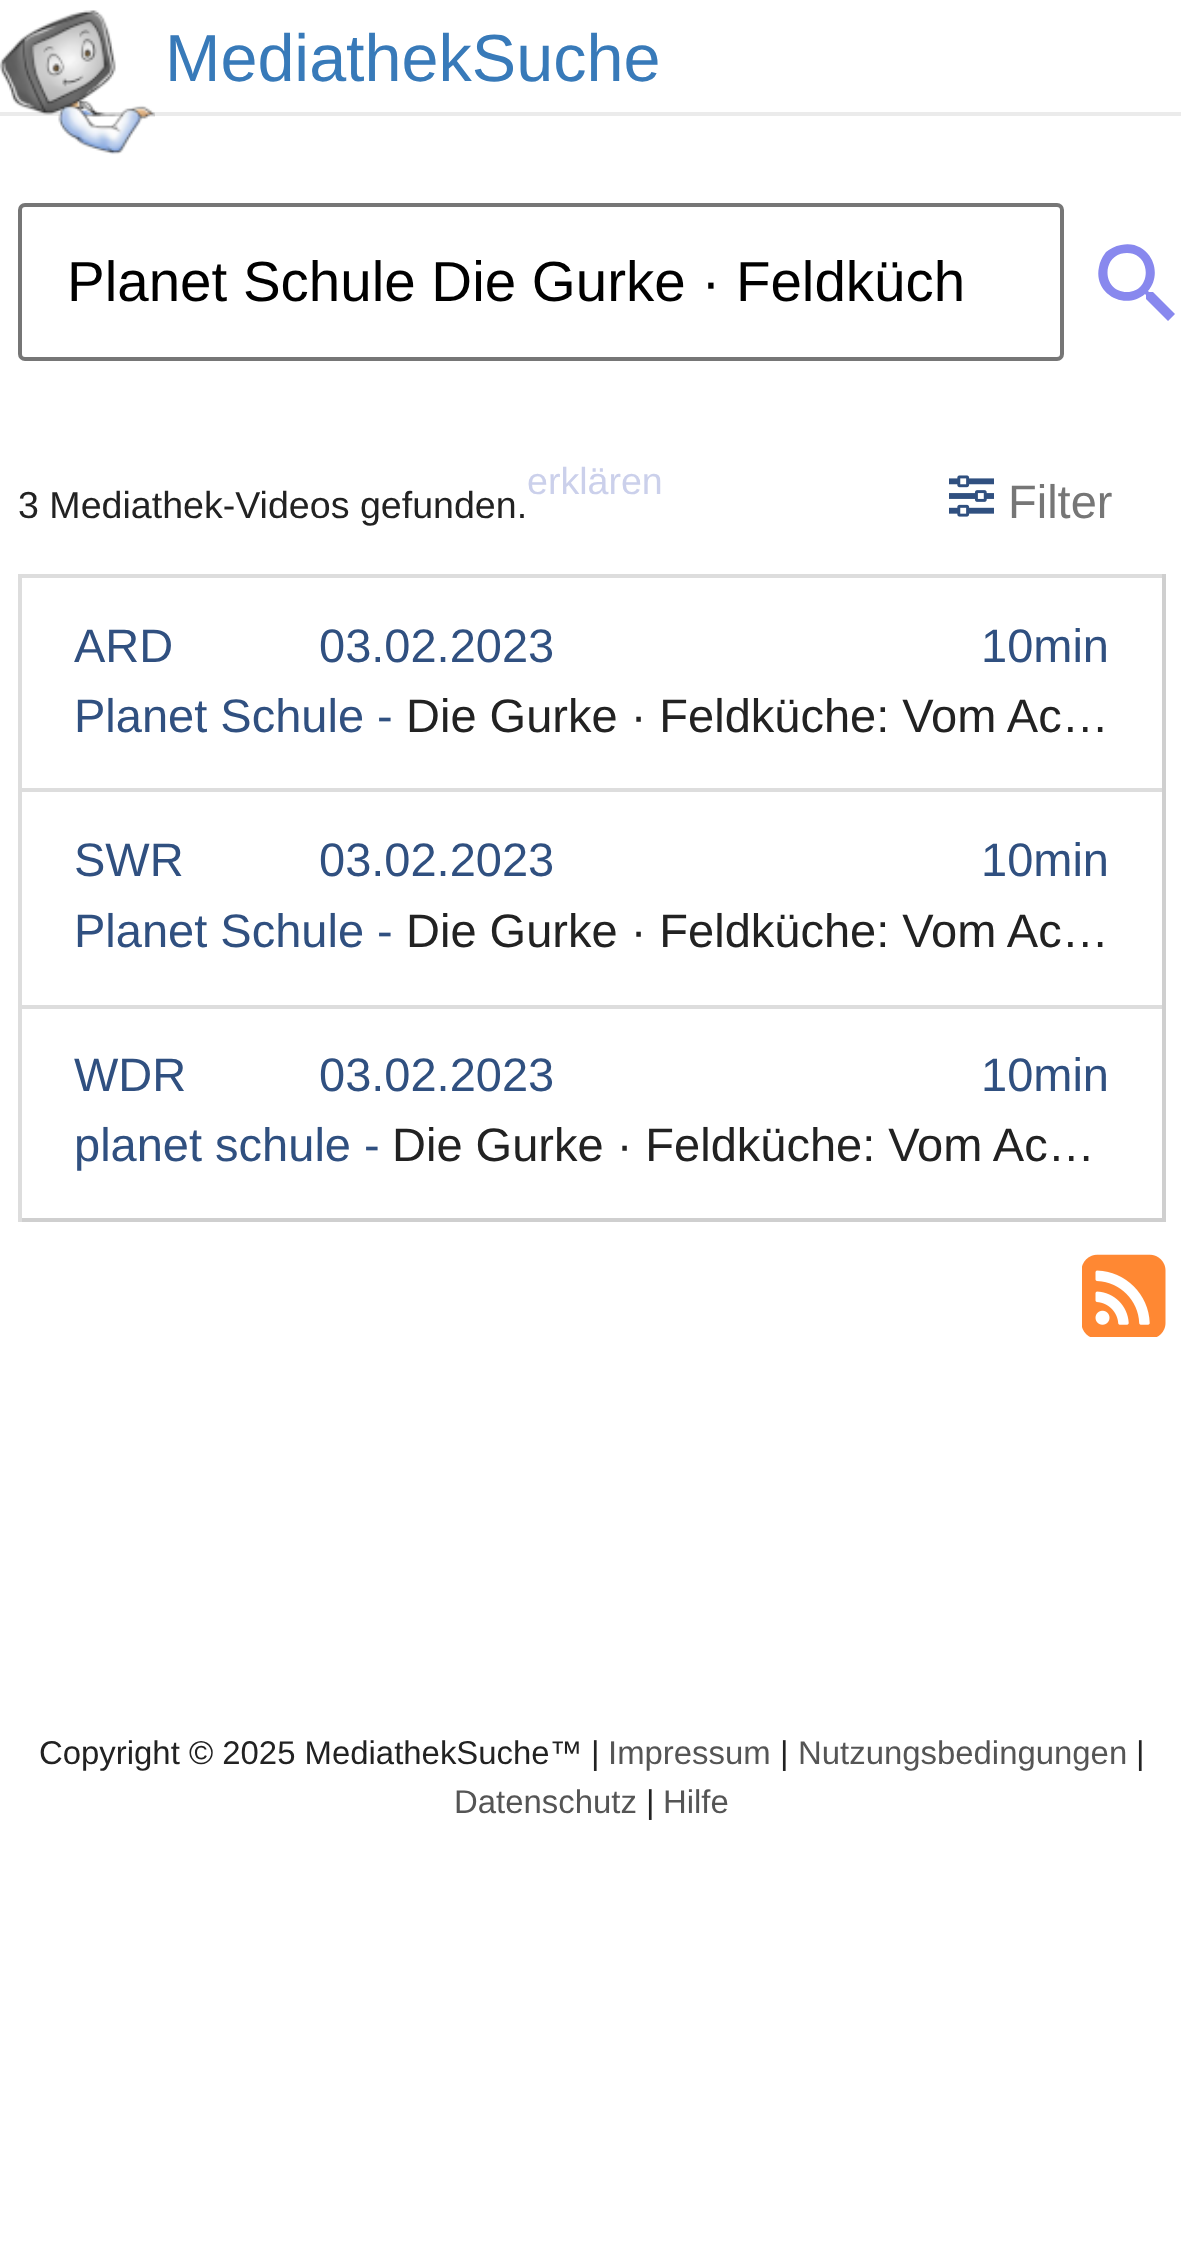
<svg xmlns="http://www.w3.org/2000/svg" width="1181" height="2259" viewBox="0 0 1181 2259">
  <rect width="100%" height="100%" fill="#ffffff"/>
  <rect x="0" y="112" width="1181" height="4" fill="#ebebeb"/>
  <image x="0" y="10" width="155" height="145" href="img1.png"/>
  <text x="165" y="81" font-family="Liberation Sans" font-size="66.5" fill="#387ab9">MediathekSuche</text>
  <rect x="20" y="205" width="1042" height="154" rx="5" fill="none" stroke="#767676" stroke-width="4"/>
  <text x="67" y="301" font-family="Liberation Sans" font-size="56.5" fill="#000000">Planet Schule Die Gurke · Feldküch</text>
  <path d="M1153 292H1149L1148 291C1165 271 1148 239 1121 245C1115 246 1110 249 1106 252C1103 256 1100 261 1099 267C1093 294 1125 311 1145 294L1146 295V299L1168 321L1175 314ZM1127 292C1101 292 1101 253 1127 253C1152 253 1152 292 1127 292Z" fill="#8888ee"/>
  <text x="18" y="518" font-family="Liberation Sans" font-size="37.6" fill="#222222">3 Mediathek-Videos gefunden.</text>
  <text x="527" y="494" font-family="Liberation Sans" font-size="37.6" fill="#cbd0eb">erklären</text>
  <image x="949" y="475" width="45" height="42" href="img2.png"/>
  <text x="1008" y="518" font-family="Liberation Sans" font-size="47" fill="#767676">Filter</text>
  <rect x="18" y="574" width="1148" height="4" fill="#dddddd"/>
  <rect x="1162" y="574" width="4" height="214" fill="#cfcfcf"/>
  <rect x="18" y="574" width="4" height="214" fill="#dddddd"/>
  <text x="74" y="662" font-family="Liberation Sans" font-size="47" fill="#305080">ARD</text>
  <text x="319" y="662" font-family="Liberation Sans" font-size="47" fill="#305080">03.02.2023</text>
  <text x="981" y="662" font-family="Liberation Sans" font-size="47" fill="#305080">10min</text>
  <text x="74" y="732" font-family="Liberation Sans" font-size="47" fill="#305080">Planet Schule -</text>
  <text x="406" y="732" font-family="Liberation Sans" font-size="47" fill="#222222">Die Gurke · Feldküche: Vom Ac…</text>
  <rect x="18" y="788" width="1148" height="4" fill="#dddddd"/>
  <rect x="1162" y="788" width="4" height="217" fill="#cfcfcf"/>
  <rect x="18" y="788" width="4" height="217" fill="#dddddd"/>
  <text x="74" y="876" font-family="Liberation Sans" font-size="47" fill="#305080">SWR</text>
  <text x="319" y="876" font-family="Liberation Sans" font-size="47" fill="#305080">03.02.2023</text>
  <text x="981" y="876" font-family="Liberation Sans" font-size="47" fill="#305080">10min</text>
  <text x="74" y="947" font-family="Liberation Sans" font-size="47" fill="#305080">Planet Schule -</text>
  <text x="406" y="947" font-family="Liberation Sans" font-size="47" fill="#222222">Die Gurke · Feldküche: Vom Ac…</text>
  <rect x="18" y="1005" width="1148" height="4" fill="#dddddd"/>
  <rect x="1162" y="1005" width="4" height="217" fill="#cfcfcf"/>
  <rect x="18" y="1218" width="1148" height="4" fill="#cfcfcf"/>
  <rect x="18" y="1005" width="4" height="217" fill="#dddddd"/>
  <text x="74" y="1091" font-family="Liberation Sans" font-size="47" fill="#305080">WDR</text>
  <text x="319" y="1091" font-family="Liberation Sans" font-size="47" fill="#305080">03.02.2023</text>
  <text x="981" y="1091" font-family="Liberation Sans" font-size="47" fill="#305080">10min</text>
  <text x="74" y="1161" font-family="Liberation Sans" font-size="47" fill="#305080">planet schule -</text>
  <text x="392" y="1161" font-family="Liberation Sans" font-size="47" fill="#222222">Die Gurke · Feldküche: Vom Ac…</text>
  <image x="1082" y="1254" width="84" height="83" href="img3.png"/>
  <text x="39" y="1764" font-family="Liberation Sans" font-size="32.9" fill="#222222">Copyright © 2025 MediathekSuche™</text>
  <text x="591" y="1764" font-family="Liberation Sans" font-size="32.9" fill="#222222">|</text>
  <text x="608" y="1764" font-family="Liberation Sans" font-size="32.9" fill="#555555">Impressum</text>
  <text x="780" y="1764" font-family="Liberation Sans" font-size="32.9" fill="#222222">|</text>
  <text x="798" y="1764" font-family="Liberation Sans" font-size="32.9" fill="#555555">Nutzungsbedingungen</text>
  <text x="1136" y="1764" font-family="Liberation Sans" font-size="32.9" fill="#222222">|</text>
  <text x="454" y="1813" font-family="Liberation Sans" font-size="32.9" fill="#555555">Datenschutz</text>
  <text x="646" y="1813" font-family="Liberation Sans" font-size="32.9" fill="#222222">|</text>
  <text x="663" y="1813" font-family="Liberation Sans" font-size="32.9" fill="#555555">Hilfe</text>
</svg>
